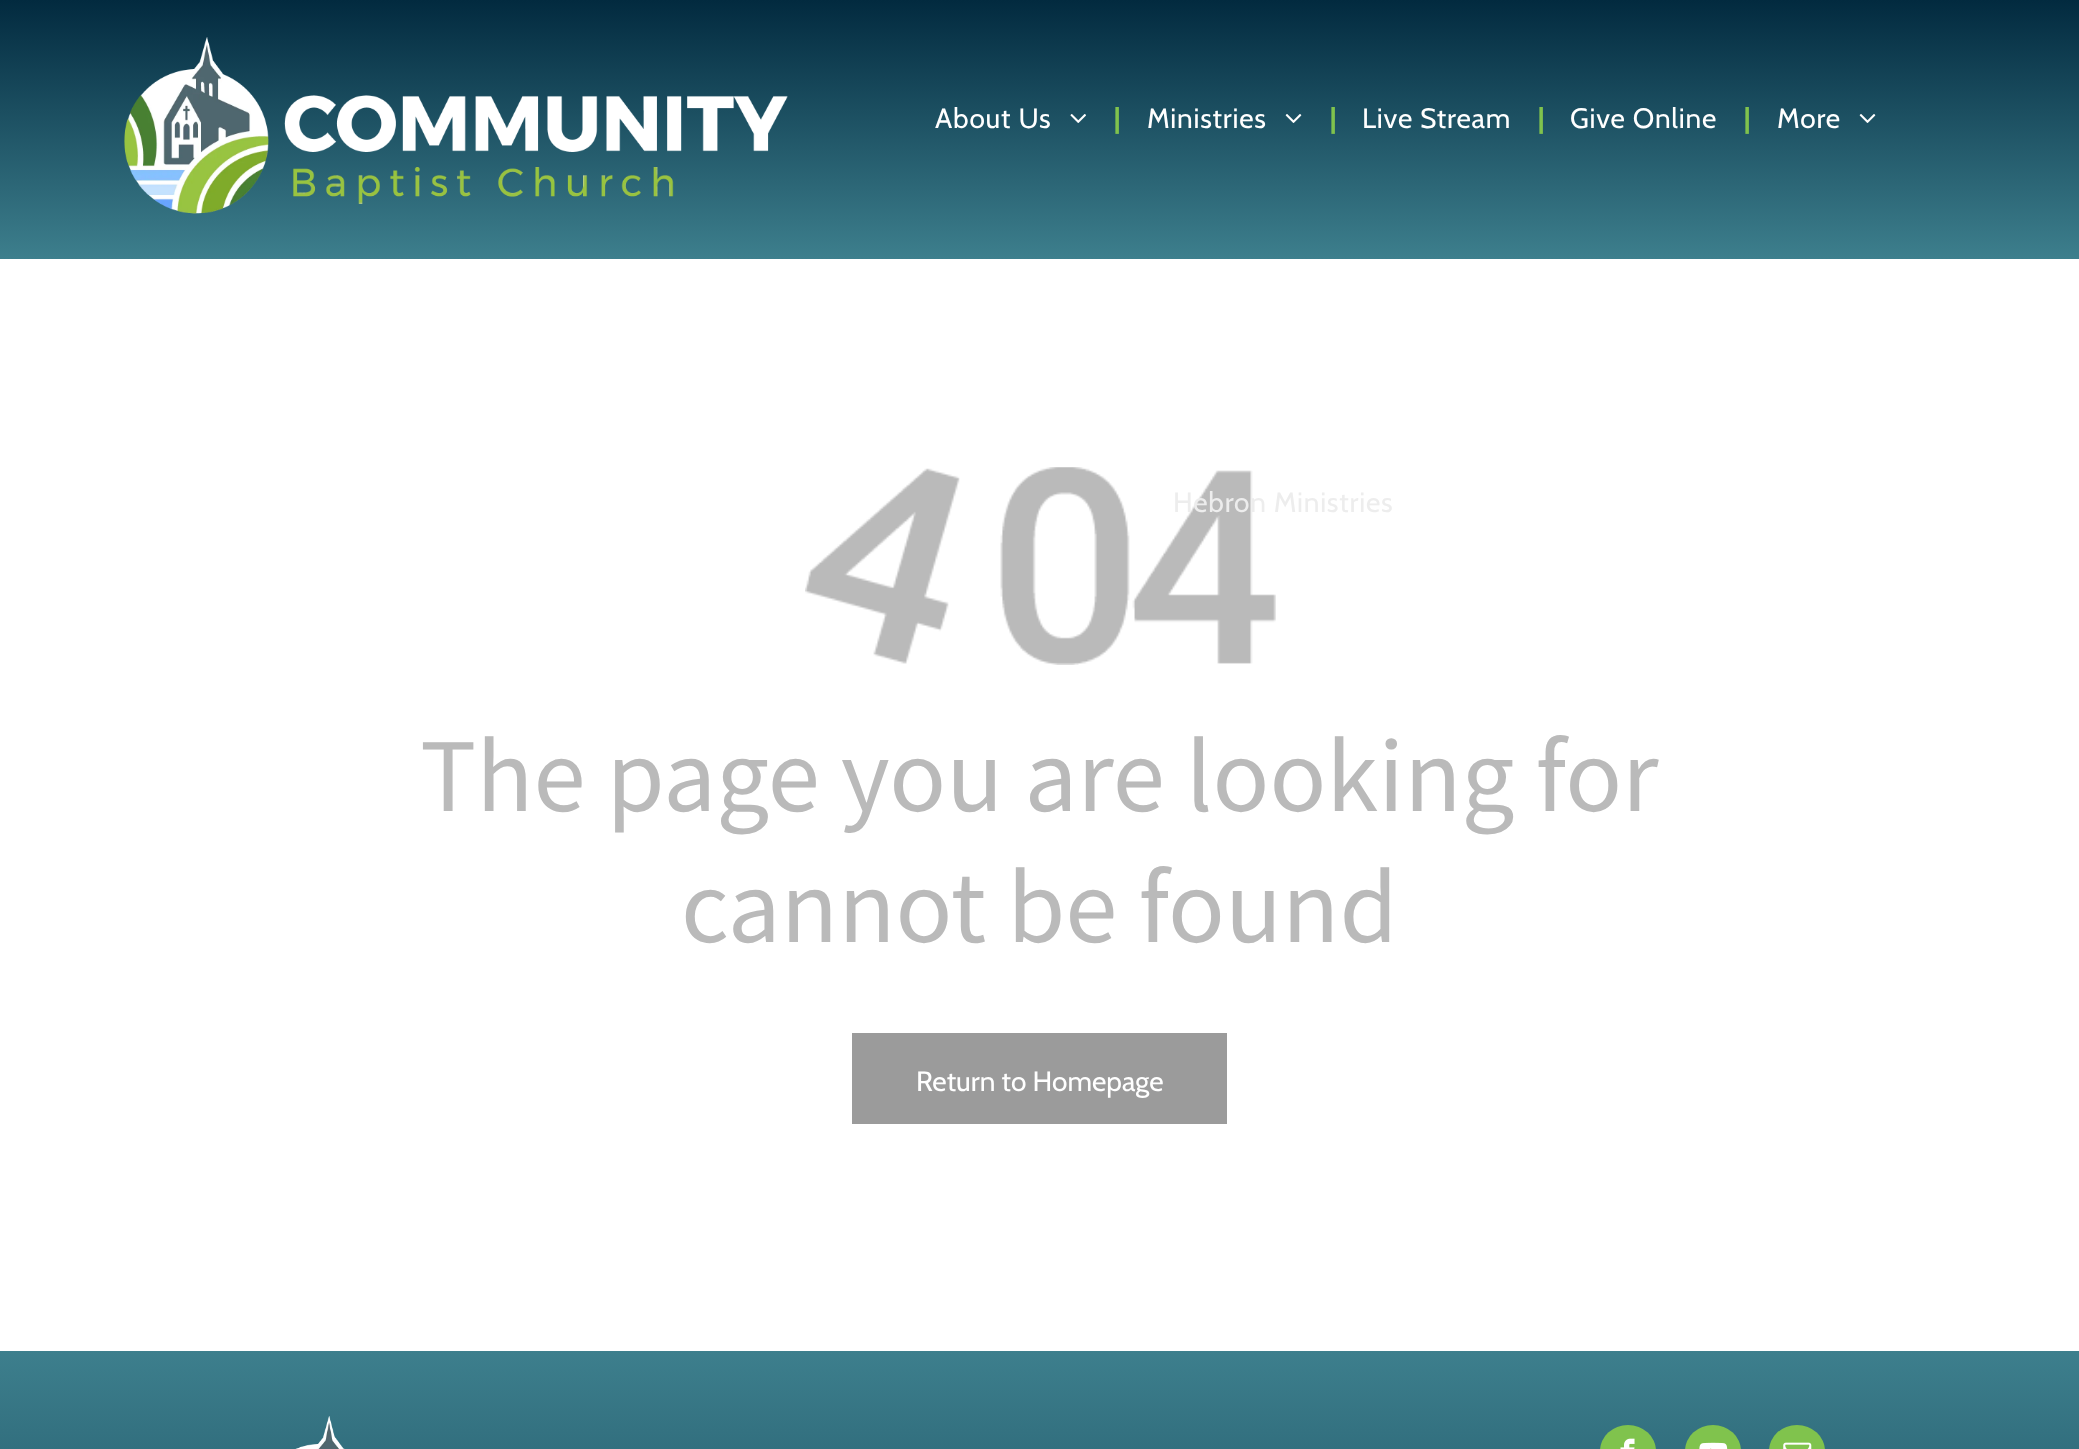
<svg xmlns="http://www.w3.org/2000/svg" width="2079" height="1449" viewBox="0 0 2079 1449">
  <defs>
    <linearGradient id="g1" gradientUnits="userSpaceOnUse" x1="1040" y1="0" x2="1040" y2="259"><stop offset="0" stop-color="#022a3f"/><stop offset="1" stop-color="#3d7f8d"/></linearGradient>
    <linearGradient id="g2" gradientUnits="userSpaceOnUse" x1="1040" y1="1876" x2="1040" y2="1351"><stop offset="0" stop-color="#022a3f"/><stop offset="1" stop-color="#3d7f8d"/></linearGradient>
  </defs>
  <rect width="100%" height="100%" fill="#ffffff"/>
  <rect x="0" y="0" width="2079" height="259" fill="url(#g1)"/>
  <image x="124" y="37" width="664" height="177" href="img1.png"/>
  <text x="935" y="128" font-family="Cabin" font-size="28" letter-spacing="0.8" fill="#ffffff">About Us</text>
  <image x="1070" y="114" width="16" height="9" href="img2.png"/>
  <text x="1114" y="128" font-family="Cabin" font-size="28" font-weight="bold" fill="#80c34d">|</text>
  <text x="1147" y="128" font-family="Cabin" font-size="28" letter-spacing="0.8" fill="#ffffff">Ministries</text>
  <image x="1285" y="114" width="17" height="9" href="img3.png"/>
  <text x="1330" y="128" font-family="Cabin" font-size="28" font-weight="bold" fill="#80c34d">|</text>
  <image x="805" y="467" width="471" height="198" href="img4.png"/>
  <text x="1173" y="512" font-family="Cabin" font-size="28" letter-spacing="0.8" fill="#ededed">Hebron Ministries</text>
  <text x="1362" y="128" font-family="Cabin" font-size="28" letter-spacing="0.8" fill="#ffffff">Live Stream</text>
  <text x="1538" y="128" font-family="Cabin" font-size="28" font-weight="bold" fill="#80c34d">|</text>
  <text x="1570" y="128" font-family="Cabin" font-size="28" letter-spacing="0.8" fill="#ffffff">Give Online</text>
  <text x="1744" y="128" font-family="Cabin" font-size="28" font-weight="bold" fill="#80c34d">|</text>
  <text x="1777" y="128" font-family="Cabin" font-size="28" letter-spacing="0.8" fill="#ffffff">More</text>
  <image x="1859" y="114" width="17" height="9" href="img3.png"/>
  <text x="420" y="811" font-family="Source Sans Pro" font-size="105" fill="#bababa">The page you are looking for</text>
  <text x="681" y="942" font-family="Source Sans Pro" font-size="105" fill="#bababa">cannot be found</text>
  <rect x="852" y="1033" width="375" height="91" fill="#9b9b9b"/>
  <text x="916" y="1091" font-family="Cabin" font-size="28" fill="#ffffff">Return to Homepage</text>
  <rect x="0" y="1351" width="2079" height="98" fill="url(#g2)"/>
  <image x="295" y="1416" width="50" height="33" href="img5.png"/>
  <rect x="1600" y="1425" width="56" height="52" rx="28" fill="#80c34d"/>
  <image x="1620" y="1438" width="15" height="11" href="img6.png"/>
  <rect x="1685" y="1425" width="56" height="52" rx="28" fill="#80c34d"/>
  <image x="1699" y="1442" width="29" height="7" href="img7.png"/>
  <rect x="1769" y="1425" width="56" height="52" rx="28" fill="#80c34d"/>
  <image x="1783" y="1442" width="29" height="7" href="img8.png"/>
</svg>
